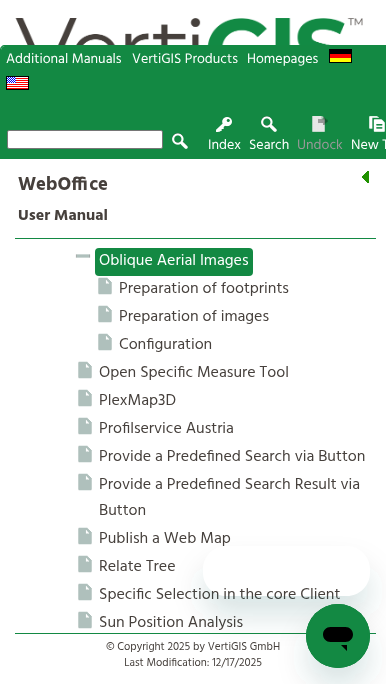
<svg xmlns="http://www.w3.org/2000/svg" width="386" height="684" viewBox="0 0 386 684">
  <defs>
    <clipPath id="clip1"><path d="M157 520H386V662H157ZM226 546H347C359.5 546 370 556.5 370 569V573C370 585.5 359.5 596 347 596H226C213.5 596 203 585.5 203 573V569C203 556.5 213.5 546 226 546Z" clip-rule="evenodd"/></clipPath>
    <filter id="blur1" x="-50%" y="-200%" width="200%" height="500%"><feGaussianBlur stdDeviation="15"/></filter>
  </defs>
  <rect width="100%" height="100%" fill="#ffffff"/>
  <image x="15" y="18" width="348" height="27" href="img1.png"/>
  <path d="M5 46H386V100H1V50C1 48 3 46 5 46Z" fill="#138943"/>
  <path d="M5 45H386V100H0V50C0 47 2 45 5 45ZM5 46H386V100H1V50C1 48 3 46 5 46Z" fill="#138943" fill-rule="evenodd"/>
  <text x="6" y="63" font-family="Hind" font-size="14" fill="#ffffff">Additional Manuals</text>
  <text x="132" y="63" font-family="Hind" font-size="14" fill="#ffffff">VertiGIS Products</text>
  <text x="247" y="63" font-family="Hind" font-size="14" fill="#ffffff">Homepages</text>
  <image x="329" y="49" width="23" height="14" href="img2.png"/>
  <image x="6" y="76" width="23" height="14" href="img3.png"/>
  <rect x="0" y="100" width="386" height="59" fill="#138943"/>
  <rect x="7.5" y="130.5" width="155" height="18" rx="1.5" fill="#ffffff" stroke="#767676"/>
  <image x="172" y="133" width="16" height="16" href="img4.png"/>
  <image x="216" y="117" width="16" height="15" href="img5.png"/>
  <text x="208" y="149" font-family="Hind" font-size="14" fill="#ffffff">Index</text>
  <image x="261" y="116" width="16" height="16" href="img4.png"/>
  <text x="249" y="149" font-family="Hind" font-size="14" fill="#ffffff">Search</text>
  <image x="312" y="116" width="16" height="16" href="img6.png"/>
  <text x="297" y="149" font-family="Hind" font-size="14" fill="#999999">Undock</text>
  <image x="369" y="116" width="16" height="16" href="img7.png"/>
  <text x="351" y="149" font-family="Hind" font-size="14" fill="#ffffff">New T</text>
  <image x="15" y="176" width="361" height="492" href="img9.png"/>
  <image x="362" y="171" width="7" height="12" href="img8.png"/>
  <g clip-path="url(#clip1)">
    <rect x="203" y="566" width="167" height="50" rx="23" fill="#17494d" fill-opacity="0.15" filter="url(#blur1)"/>
  </g>
  <rect x="306" y="624" width="64" height="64" rx="32" fill="#17494d" fill-opacity="0.15" filter="url(#blur1)"/>
  <image x="306" y="604" width="64" height="64" href="img10.png"/>
</svg>
